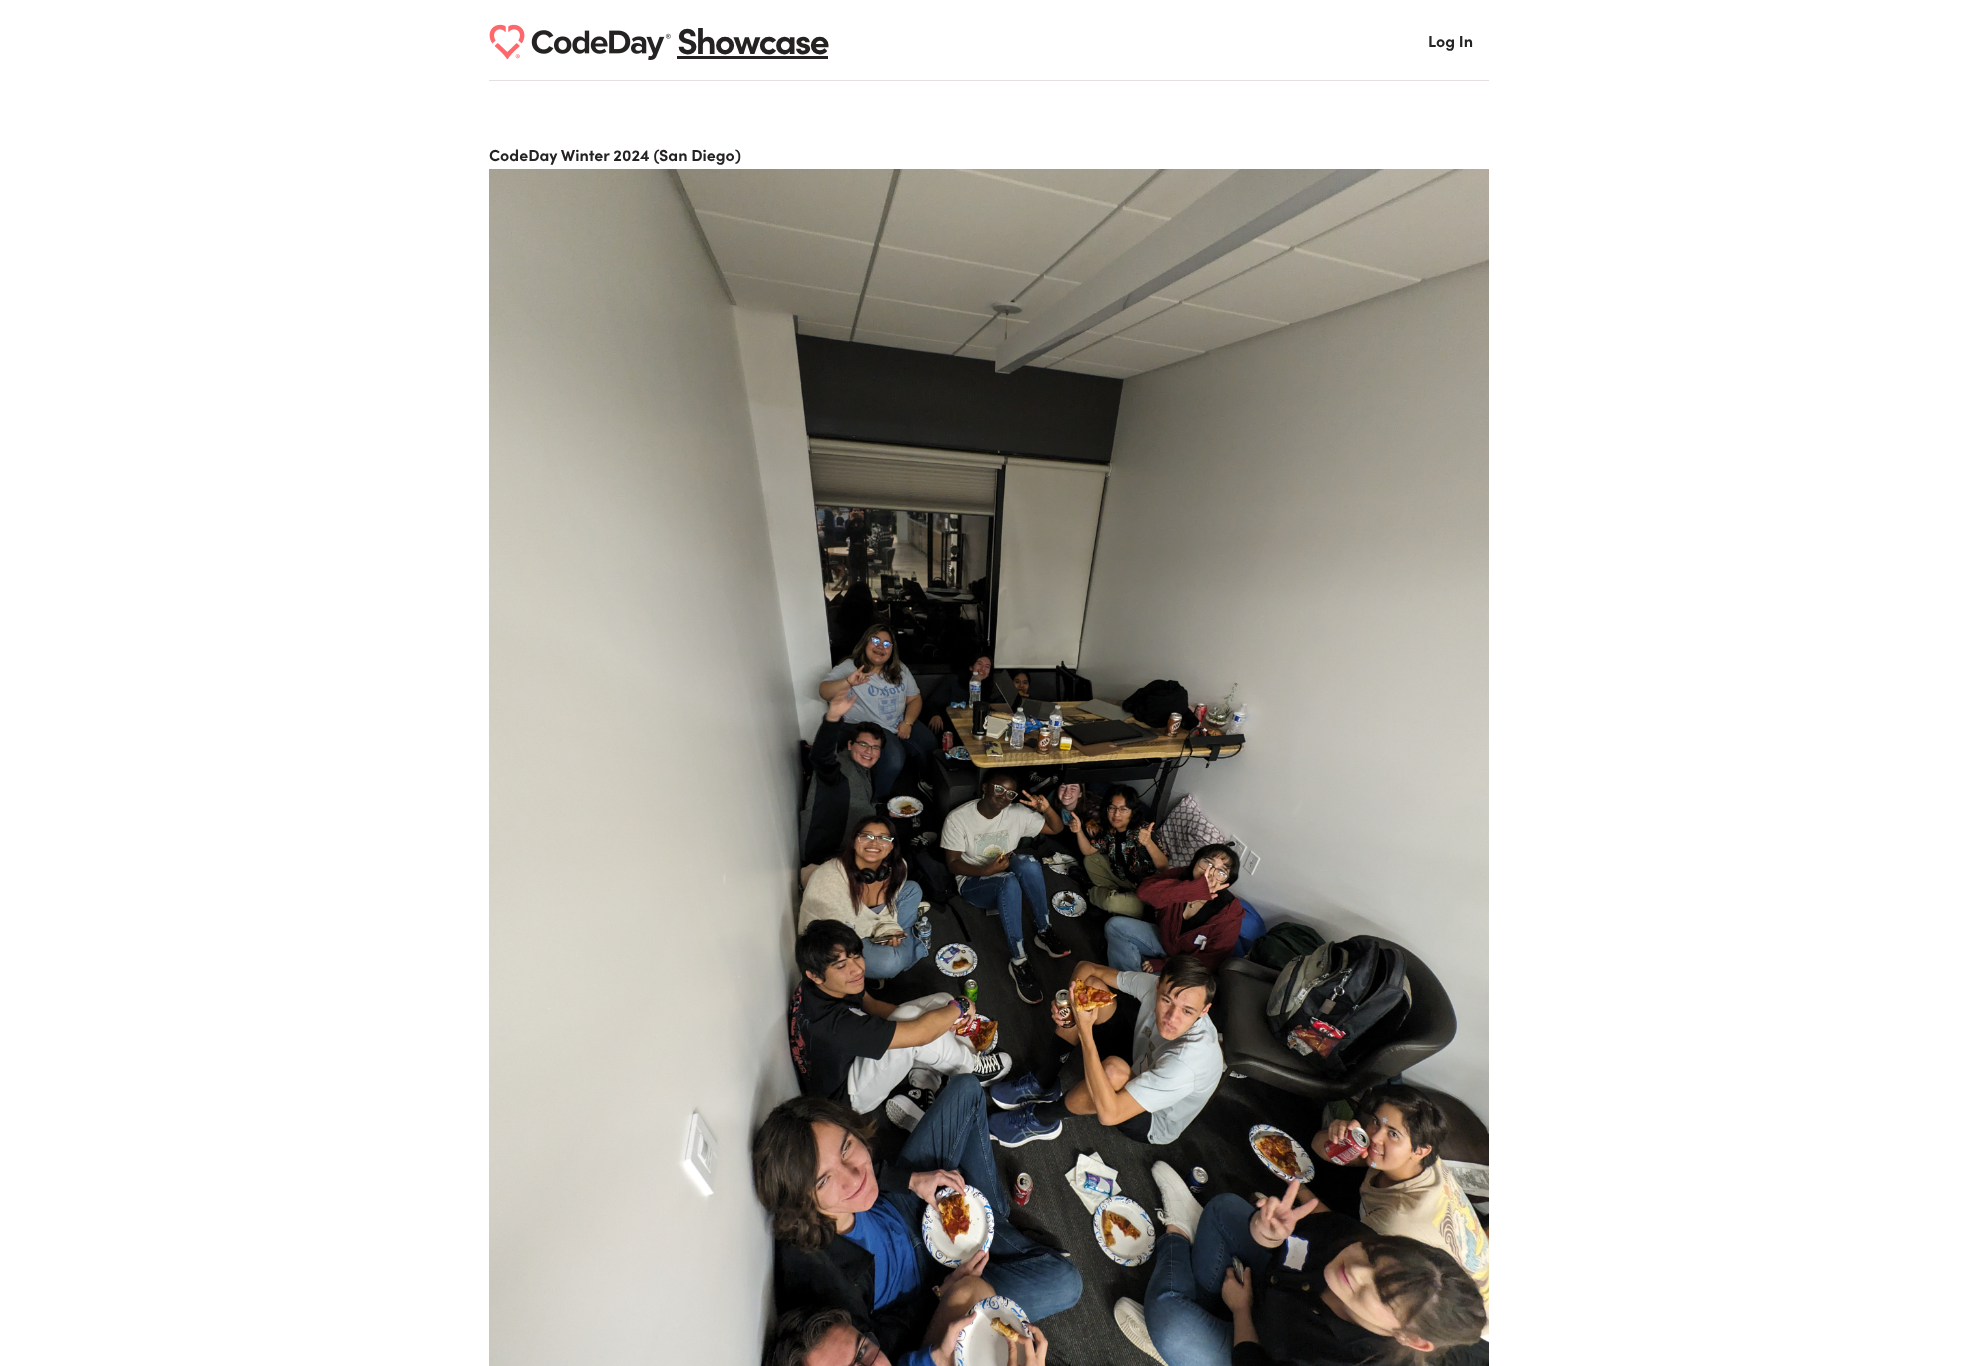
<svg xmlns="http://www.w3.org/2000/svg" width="1978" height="1366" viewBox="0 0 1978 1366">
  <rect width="100%" height="100%" fill="#ffffff"/>
  <rect x="489" y="80" width="1000" height="1" fill="#e6dfdf"/>
  <image x="489" y="24" width="36" height="36" href="img1.png"/>
  <image x="531" y="30" width="140" height="30" href="img2.png"/>
  <text x="677" y="54" font-family="Sofia" font-size="36" letter-spacing="-2" fill="#252222">Showcase</text>
  <rect x="677" y="56" width="151" height="3" fill="#252222"/>
  <text x="1428" y="47" font-family="Sofia" font-size="16" fill="#252222">Log In</text>
  <text x="489" y="161" font-family="Sofia" font-size="16" fill="#252222">CodeDay Winter 2024 (</text>
  <text x="659" y="161" font-family="Sofia" font-size="16" fill="#252222">San Diego</text>
  <text x="735" y="161" font-family="Sofia" font-size="16" fill="#252222">)</text>
  <image x="489" y="169" width="1000" height="1197" href="img3.png"/>
</svg>
